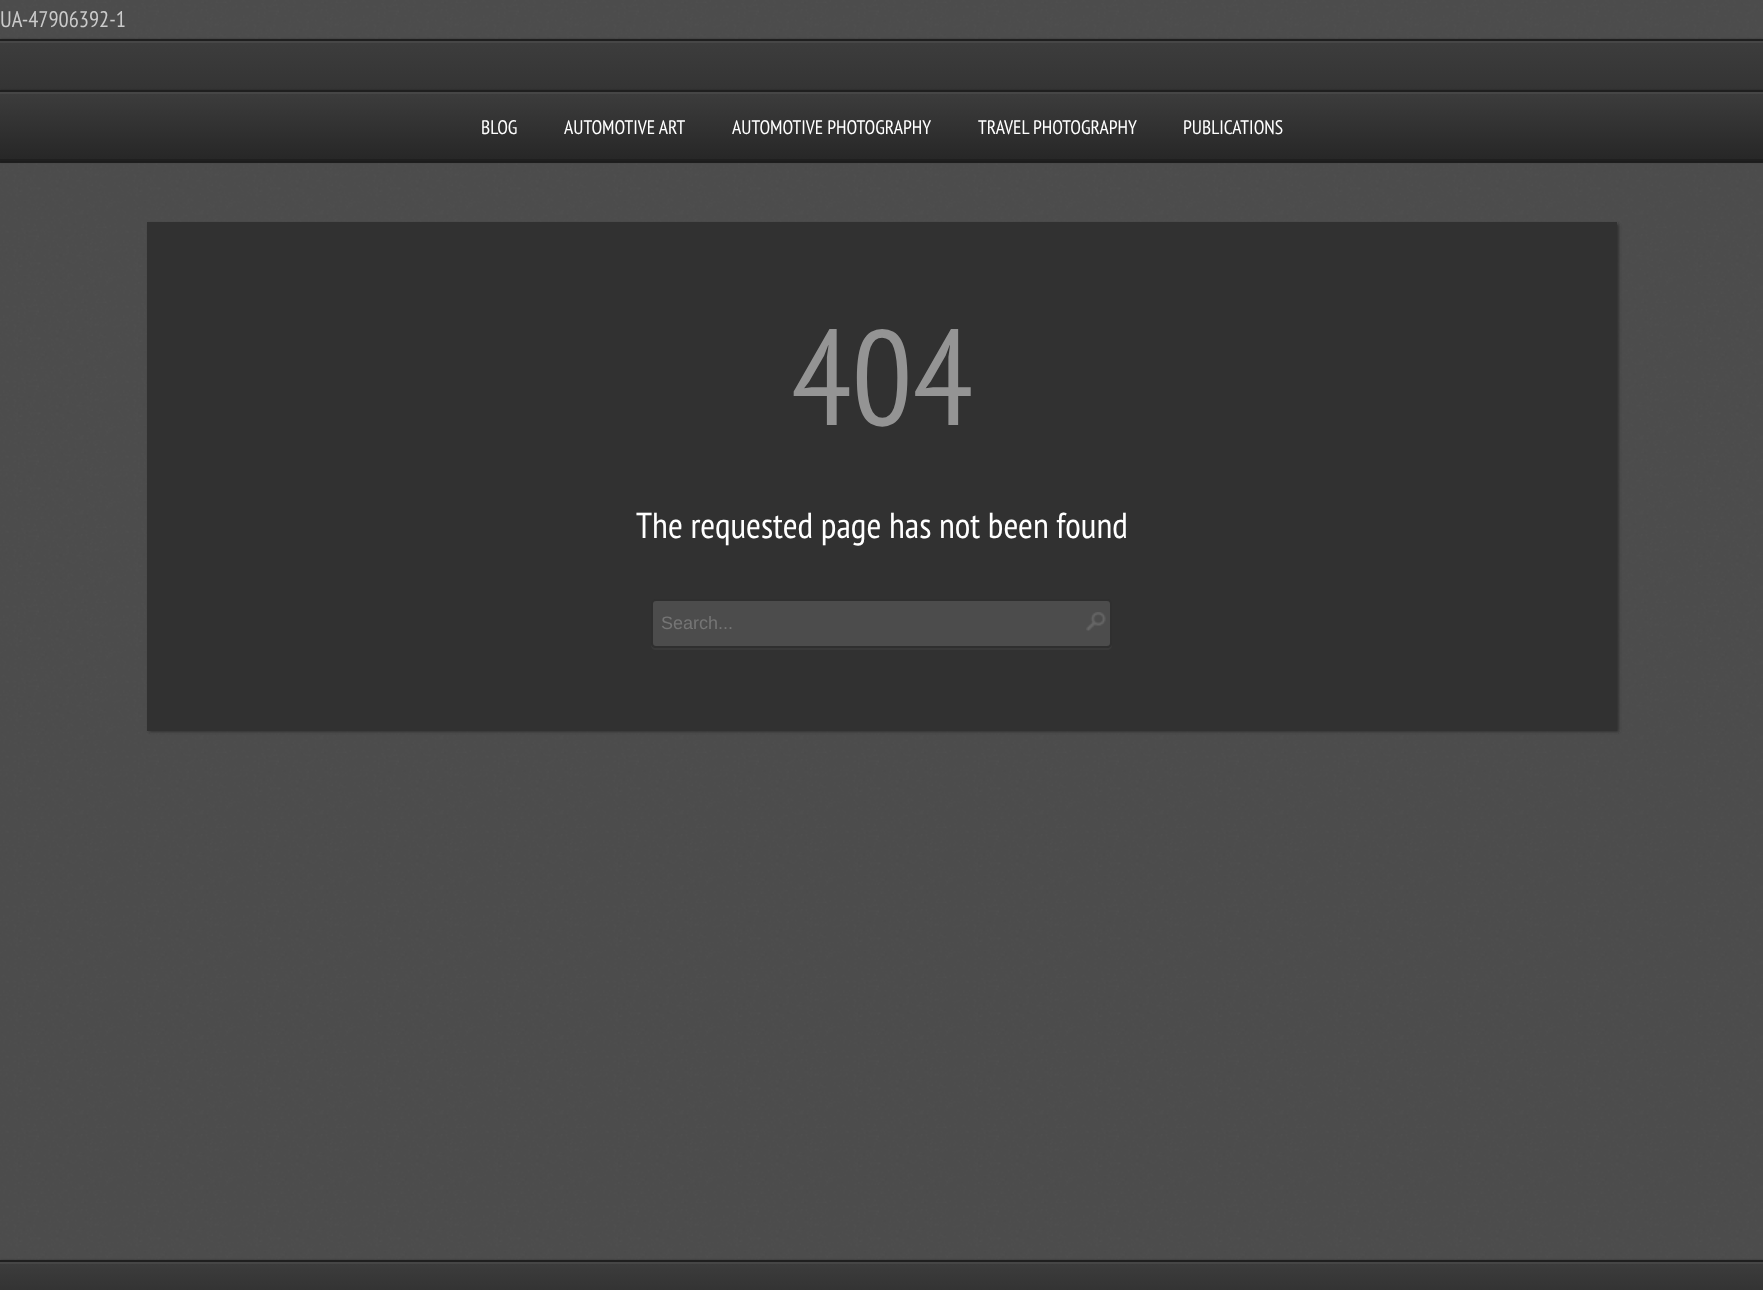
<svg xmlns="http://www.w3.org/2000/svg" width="1763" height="1290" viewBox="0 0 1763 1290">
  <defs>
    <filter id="blur1" x="-50%" y="-200%" width="200%" height="500%"><feGaussianBlur stdDeviation="1"/></filter>
    <linearGradient id="g1" gradientUnits="userSpaceOnUse" x1="882" y1="40" x2="882" y2="161"><stop offset="0" stop-color="#3d3d3d"/><stop offset="1" stop-color="#272727"/></linearGradient>
    <linearGradient id="g2" gradientUnits="userSpaceOnUse" x1="882" y1="91" x2="882" y2="159"><stop offset="0" stop-color="#3d3d3d"/><stop offset="1" stop-color="#272727"/></linearGradient>
    <filter id="blur2" x="-50%" y="-200%" width="200%" height="500%"><feGaussianBlur stdDeviation="1.5"/></filter>
    <linearGradient id="g3" gradientUnits="userSpaceOnUse" x1="882" y1="1261" x2="882" y2="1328"><stop offset="0" stop-color="#3d3d3d"/><stop offset="1" stop-color="#272727"/></linearGradient>
  </defs>
  <rect width="100%" height="100%" fill="#6a6a6a"/>
  <image x="0" y="0" width="1763" height="1260" href="img1.png"/>
  <text x="0" y="27" font-family="PT Sans Narrow" font-size="22.5" fill="#cbcbcb">UA-47906392-1</text>
  <rect x="0" y="39" width="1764" height="123" fill="#000000" fill-opacity="0.3" filter="url(#blur1)"/>
  <rect x="0" y="43" width="1763" height="47" fill="url(#g1)"/>
  <rect x="0" y="41" width="1763" height="2" fill="#474747"/>
  <rect x="0" y="39" width="1763" height="2" fill="#1f1f1f"/>
  <rect x="0" y="161" width="1763" height="2" fill="#1f1f1f"/>
  <rect x="0" y="90" width="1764" height="71" fill="#000000" fill-opacity="0.3" filter="url(#blur1)"/>
  <rect x="0" y="94" width="1763" height="65" fill="url(#g2)"/>
  <rect x="0" y="92" width="1763" height="2" fill="#464646"/>
  <rect x="0" y="90" width="1763" height="2" fill="#1f1f1f"/>
  <rect x="0" y="159" width="1763" height="2" fill="#1f1f1f"/>
  <text x="481" y="134" font-family="PT Sans Narrow" font-size="19.5" fill="#ffffff">BLOG</text>
  <text x="564" y="134" font-family="PT Sans Narrow" font-size="19.5" fill="#ffffff">AUTOMOTIVE ART</text>
  <text x="732" y="134" font-family="PT Sans Narrow" font-size="19.5" fill="#ffffff">AUTOMOTIVE PHOTOGRAPHY</text>
  <text x="978" y="134" font-family="PT Sans Narrow" font-size="19.5" fill="#ffffff">TRAVEL PHOTOGRAPHY</text>
  <text x="1183" y="134" font-family="PT Sans Narrow" font-size="19.5" fill="#ffffff">PUBLICATIONS</text>
  <rect x="149" y="224" width="1470" height="508" fill="#2b2b2b" fill-opacity="0.8" filter="url(#blur2)"/>
  <rect x="147" y="222" width="1470" height="509" fill="#313131"/>
  <text x="791" y="425" font-family="PT Sans Narrow" font-size="135" fill="#949494">404</text>
  <text x="636" y="538" font-family="PT Sans Narrow" font-size="36" fill="#ffffff">The requested page has not been found</text>
  <path d="M651 644V645C651 648 653 650 656 650H1107C1110 650 1112 648 1112 645V605L1111 603L1112 644C1112 646 1109 648 1107 648H656C653 648 651 646 651 644Z" fill="#393939"/>
  <rect x="652" y="600" width="459" height="47" rx="4" fill="#4c4c4c" stroke="#2f2f2f" stroke-width="2"/>
  <text x="661" y="629" font-family="Liberation Sans" font-size="18" fill="#757575">Search...</text>
  <image x="1086" y="612" width="20" height="19" href="img2.png"/>
  <rect x="0" y="1260" width="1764" height="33" fill="#000000" fill-opacity="0.3" filter="url(#blur1)"/>
  <rect x="0" y="1264" width="1763" height="26" fill="url(#g3)"/>
  <rect x="0" y="1262" width="1763" height="2" fill="#464646"/>
  <rect x="0" y="1260" width="1763" height="2" fill="#1f1f1f"/>
</svg>
